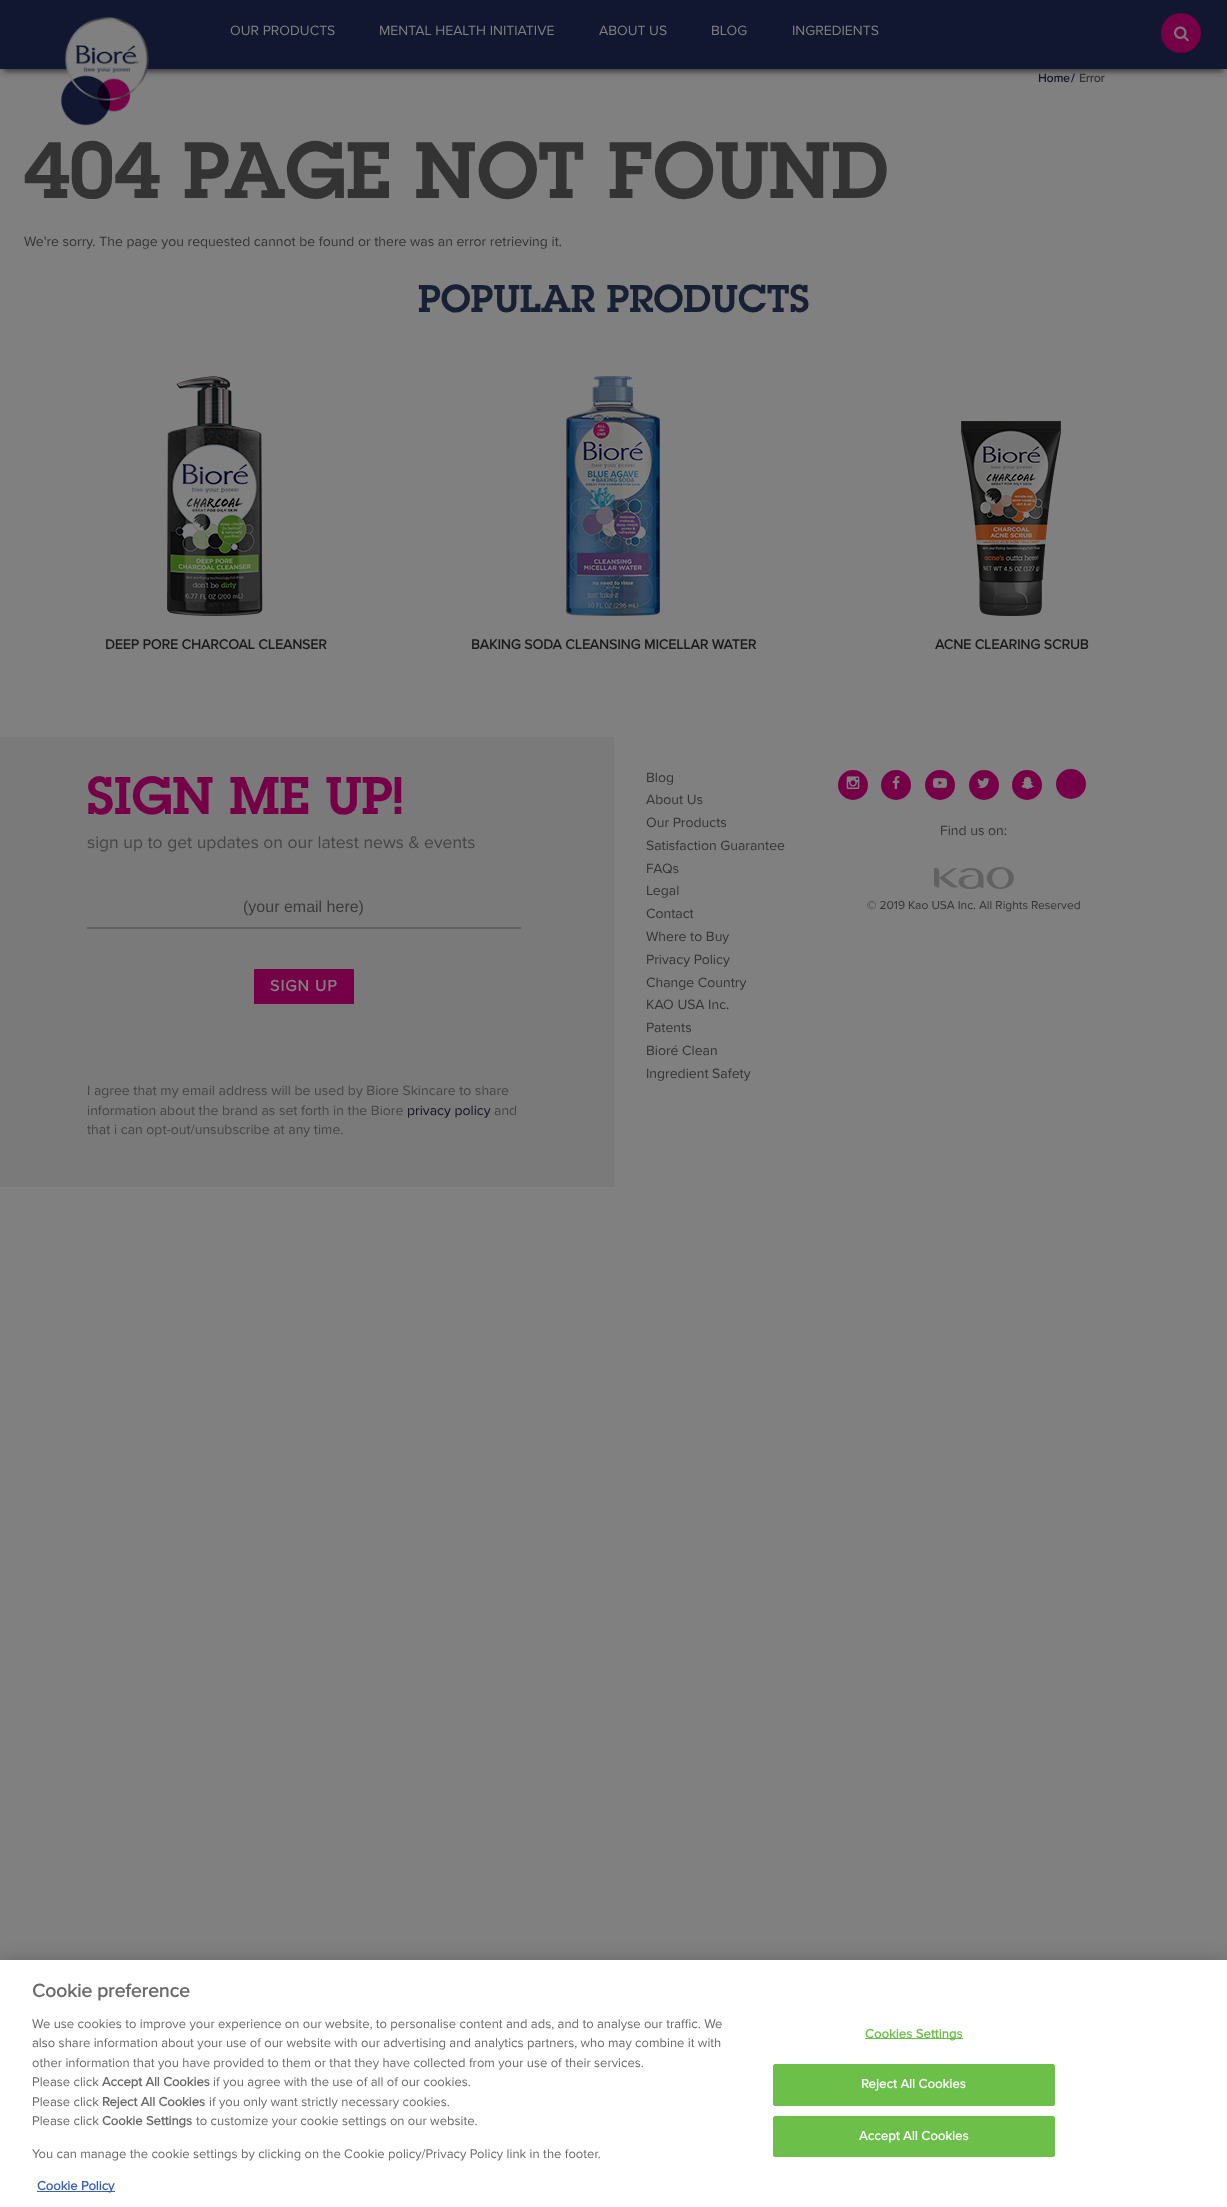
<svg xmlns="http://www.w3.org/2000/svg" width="1227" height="2207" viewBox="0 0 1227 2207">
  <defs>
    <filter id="blur1" x="-50%" y="-200%" width="200%" height="500%"><feGaussianBlur stdDeviation="3"/></filter>
    <filter id="blur2" x="-50%" y="-200%" width="200%" height="500%"><feGaussianBlur stdDeviation="9"/></filter>
  </defs>
  <rect width="100%" height="100%" fill="#808080"/>
  <rect x="3" y="8" width="1221" height="63" fill="#2f2f2f" filter="url(#blur1)"/>
  <rect x="0" y="0" width="1227" height="69" fill="#111731"/>
  <image x="61" y="16" width="88" height="110" href="img1.png"/>
  <text x="230" y="35" font-family="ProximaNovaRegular" font-size="14" fill="#808080">OUR PRODUCTS</text>
  <text x="379" y="35" font-family="ProximaNovaRegular" font-size="14" fill="#808080">MENTAL HEALTH INITIATIVE</text>
  <text x="599" y="35" font-family="ProximaNovaRegular" font-size="14" fill="#808080">ABOUT US</text>
  <text x="711" y="35" font-family="ProximaNovaRegular" font-size="14" fill="#808080">BLOG</text>
  <text x="792" y="35" font-family="ProximaNovaRegular" font-size="14" fill="#808080">INGREDIENTS</text>
  <circle cx="1181" cy="33" r="20" fill="#760047"/>
  <image x="1174" y="26" width="15" height="16" href="img2.png"/>
  <text x="1038" y="82" font-family="ProximaNovaRegular" font-size="12" font-weight="bold" fill="#10152c">Home</text>
  <text x="1071" y="82" font-family="ProximaNovaRegular" font-size="12" font-weight="bold" fill="#10152c">/</text>
  <text x="1079" y="82" font-family="ProximaNovaRegular" font-size="12" font-weight="bold" fill="#333333">Error</text>
  <text x="24" y="198" font-family="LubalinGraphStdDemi" font-size="78" fill="#333333">404 PAGE NOT FOUND</text>
  <text x="24" y="246" font-family="ProximaNovaRegular" font-size="14" fill="#333333">We're sorry. The page you requested cannot be found or there was an error retrieving it.</text>
  <text x="418" y="312" font-family="LubalinGraphStdDemi" font-size="38" fill="#182033">POPULAR PRODUCTS</text>
  <image x="167" y="376" width="96" height="240" href="img3.png"/>
  <text x="105" y="649" font-family="ProximaNovaRegular" font-size="14" font-weight="bold" fill="#1a1a1a">DEEP PORE CHARCOAL CLEANSER</text>
  <image x="566" y="376" width="94" height="240" href="img4.png"/>
  <text x="471" y="649" font-family="ProximaNovaRegular" font-size="14" font-weight="bold" fill="#1a1a1a">BAKING SODA CLEANSING MICELLAR WATER</text>
  <image x="961" y="421" width="100" height="195" href="img5.png"/>
  <text x="935" y="649" font-family="ProximaNovaRegular" font-size="14" font-weight="bold" fill="#1a1a1a">ACNE CLEARING SCRUB</text>
  <rect x="0" y="737" width="614" height="450" fill="#7a7a7a"/>
  <text x="87" y="814" font-family="LubalinGraphStdDemi" font-size="52" fill="#760047">SIGN ME UP!</text>
  <text x="87" y="848" font-family="ProximaNovaRegular" font-size="17.5" fill="#454545">sign up to get updates on our latest news &amp; events</text>
  <rect x="87" y="927" width="434" height="2" fill="#616161"/>
  <text x="243" y="912" font-family="Liberation Sans" font-size="16" fill="#3b3b3b">(your email here)</text>
  <rect x="254" y="969" width="100" height="35" fill="#760047"/>
  <text x="270" y="991" font-family="ProximaNovaRegular" font-size="16" font-weight="bold" letter-spacing="1" fill="#808080">SIGN UP</text>
  <text x="87" y="1095" font-family="ProximaNovaRegular" font-size="14" fill="#454545">I agree that my email address will be used by Biore Skincare to share</text>
  <text x="87" y="1115" font-family="ProximaNovaRegular" font-size="14" fill="#454545">information about the brand as set forth in the Biore</text>
  <text x="407" y="1115" font-family="ProximaNovaRegular" font-size="14" fill="#111225">privacy policy</text>
  <text x="494" y="1115" font-family="ProximaNovaRegular" font-size="14" fill="#454545">and</text>
  <text x="87" y="1134" font-family="ProximaNovaRegular" font-size="14" fill="#454545">that i can opt-out/unsubscribe at any time.</text>
  <text x="646" y="782" font-family="ProximaNovaRegular" font-size="14" fill="#333333">Blog</text>
  <text x="646" y="804" font-family="ProximaNovaRegular" font-size="14" fill="#333333">About Us</text>
  <text x="646" y="827" font-family="ProximaNovaRegular" font-size="14" fill="#333333">Our Products</text>
  <text x="646" y="850" font-family="ProximaNovaRegular" font-size="14" fill="#333333">Satisfaction Guarantee</text>
  <text x="646" y="873" font-family="ProximaNovaRegular" font-size="14" fill="#333333">FAQs</text>
  <text x="646" y="895" font-family="ProximaNovaRegular" font-size="14" fill="#333333">Legal</text>
  <text x="646" y="918" font-family="ProximaNovaRegular" font-size="14" fill="#333333">Contact</text>
  <text x="646" y="941" font-family="ProximaNovaRegular" font-size="14" fill="#333333">Where to Buy</text>
  <text x="646" y="964" font-family="ProximaNovaRegular" font-size="14" fill="#333333">Privacy Policy</text>
  <text x="646" y="987" font-family="ProximaNovaRegular" font-size="14" fill="#333333">Change Country</text>
  <text x="646" y="1009" font-family="ProximaNovaRegular" font-size="14" fill="#333333">KAO USA Inc.</text>
  <text x="646" y="1032" font-family="ProximaNovaRegular" font-size="14" fill="#333333">Patents</text>
  <text x="646" y="1055" font-family="ProximaNovaRegular" font-size="14" fill="#333333">Bioré Clean</text>
  <text x="646" y="1078" font-family="ProximaNovaRegular" font-size="14" fill="#333333">Ingredient Safety</text>
  <circle cx="853" cy="785" r="15" fill="#760047"/>
  <image x="846" y="776" width="14" height="13" href="img6.png"/>
  <circle cx="896" cy="785" r="15" fill="#760047"/>
  <image x="892" y="776" width="8" height="13" href="img7.png"/>
  <circle cx="940" cy="785" r="15" fill="#760047"/>
  <image x="933" y="778" width="14" height="10" href="img8.png"/>
  <circle cx="984" cy="785" r="15" fill="#760047"/>
  <image x="977" y="778" width="13" height="10" href="img9.png"/>
  <circle cx="1027" cy="785" r="15" fill="#760047"/>
  <image x="1021" y="777" width="13" height="12" href="img10.png"/>
  <circle cx="1071" cy="784" r="15" fill="#760047"/>
  <text x="940" y="835" font-family="ProximaNovaRegular" font-size="14" fill="#333333">Find us on:</text>
  <image x="934" y="867" width="80" height="22" href="img11.png"/>
  <text x="867" y="909" font-family="ProximaNovaRegular" font-size="12" fill="#333333">© 2019 Kao USA Inc. All Rights Reserved</text>
  <rect x="0" y="1960" width="1227" height="247" fill="#000000" fill-opacity="0.2" filter="url(#blur2)"/>
  <rect x="0" y="1960" width="1227" height="247" fill="#ffffff"/>
  <text x="32" y="1997" font-family="ProximaNovaRegular" font-size="19.25" font-weight="bold" fill="#696969">Cookie preference</text>
  <text x="32" y="2028" font-family="ProximaNovaRegular" font-size="13" fill="#696969">We use cookies to improve your experience on our website, to personalise content and ads, and to analyse our traffic. We</text>
  <text x="32" y="2047" font-family="ProximaNovaRegular" font-size="13" fill="#696969">also share information about your use of our website with our advertising and analytics partners, who may combine it with</text>
  <text x="32" y="2067" font-family="ProximaNovaRegular" font-size="13" fill="#696969">other information that you have provided to them or that they have collected from your use of their services.</text>
  <text x="32" y="2086" font-family="ProximaNovaRegular" font-size="13" fill="#696969">Please click</text>
  <text x="102" y="2086" font-family="ProximaNovaRegular" font-size="13" font-weight="bold" fill="#696969">Accept All Cookies</text>
  <text x="213" y="2086" font-family="ProximaNovaRegular" font-size="13" fill="#696969">if you agree with the use of all of our cookies.</text>
  <text x="32" y="2106" font-family="ProximaNovaRegular" font-size="13" fill="#696969">Please click</text>
  <text x="102" y="2106" font-family="ProximaNovaRegular" font-size="13" font-weight="bold" fill="#696969">Reject All Cookies</text>
  <text x="209" y="2106" font-family="ProximaNovaRegular" font-size="13" fill="#696969">if you only want strictly necessary cookies.</text>
  <text x="32" y="2125" font-family="ProximaNovaRegular" font-size="13" fill="#696969">Please click</text>
  <text x="102" y="2125" font-family="ProximaNovaRegular" font-size="13" font-weight="bold" fill="#696969">Cookie Settings</text>
  <text x="196" y="2125" font-family="ProximaNovaRegular" font-size="13" fill="#696969">to customize your cookie settings on our website.</text>
  <text x="32" y="2158" font-family="ProximaNovaRegular" font-size="13" fill="#696969">You can manage the cookie settings by clicking on the Cookie policy/Privacy Policy link in the footer.</text>
  <rect x="37" y="2191" width="78" height="1" fill="#3860be"/>
  <text x="37" y="2190" font-family="ProximaNovaRegular" font-size="13" font-weight="bold" fill="#3860be">Cookie Policy</text>
  <rect x="865" y="2038" width="98" height="1" fill="#6cc04a"/>
  <text x="865" y="2038" font-family="ProximaNovaRegular" font-size="13" font-weight="bold" letter-spacing="0.1" fill="#6cc04a">Cookies Settings</text>
  <rect x="773.5" y="2064.5" width="281" height="41" rx="1.5" fill="#6cc04a" stroke="#6cc04a"/>
  <text x="861" y="2088" font-family="ProximaNovaRegular" font-size="13" font-weight="bold" letter-spacing="0.1" fill="#ffffff">Reject All Cookies</text>
  <rect x="773.5" y="2116.5" width="281" height="40" rx="1.5" fill="#6cc04a" stroke="#6cc04a"/>
  <text x="859" y="2140" font-family="ProximaNovaRegular" font-size="13" font-weight="bold" letter-spacing="0.1" fill="#ffffff">Accept All Cookies</text>
</svg>
